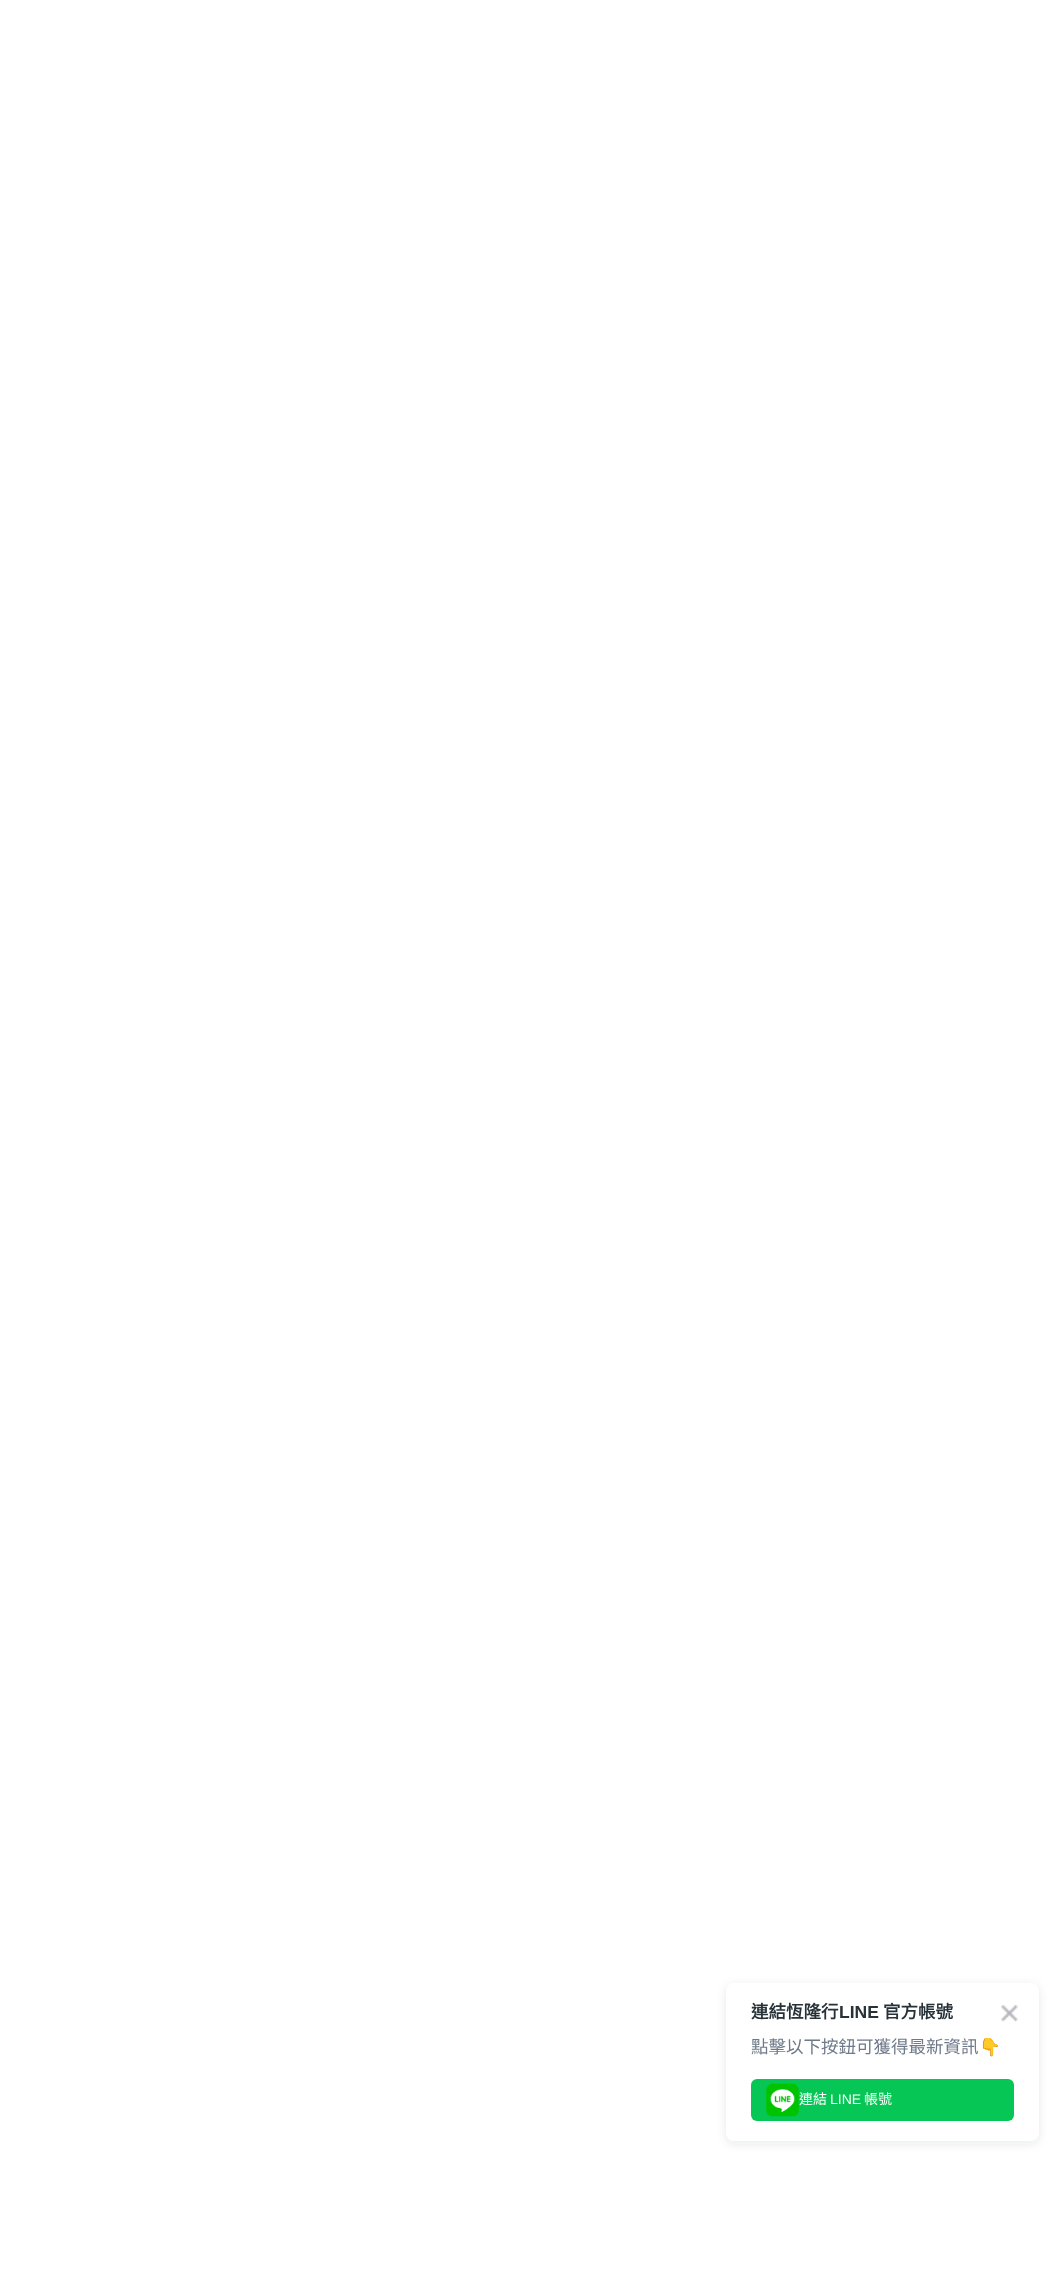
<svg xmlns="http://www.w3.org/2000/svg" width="1063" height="2272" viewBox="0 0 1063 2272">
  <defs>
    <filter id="blur1" x="-50%" y="-200%" width="200%" height="500%"><feGaussianBlur stdDeviation="5"/></filter>
  </defs>
  <rect width="100%" height="100%" fill="#ffffff"/>
  <rect x="726" y="1985" width="313" height="159" rx="8" fill="#232f35" fill-opacity="0.09" filter="url(#blur1)"/>
  <rect x="726" y="1983" width="313" height="158" rx="8" fill="#ffffff"/>
  <text x="751" y="2018" font-family="Noto Sans CJK TC" font-size="17.5" font-weight="bold" fill="#263238">連結恆隆行</text>
  <text x="839" y="2018" font-family="Liberation Sans" font-size="17.5" font-weight="bold" fill="#263238">LINE</text>
  <text x="883" y="2018" font-family="Noto Sans CJK TC" font-size="17.5" font-weight="bold" fill="#263238">官方帳號</text>
  <image x="1001" y="2005" width="17" height="17" href="img1.png"/>
  <text x="751" y="2053" font-family="Noto Sans CJK TC" font-size="17.5" fill="#6e7a89">點擊以下按鈕可獲得最新資訊</text>
  <text x="979" y="2053" font-family="Noto Color Emoji" font-size="17.5" fill="#6e7a89">👇</text>
  <rect x="751" y="2079" width="263" height="42" rx="6" fill="#06c755"/>
  <image x="766" y="2083" width="33" height="34" href="img2.png"/>
  <text x="799" y="2104" font-family="Noto Sans CJK TC" font-size="14" fill="#ffffff">連結</text>
  <text x="830" y="2104" font-family="Liberation Sans" font-size="14" fill="#ffffff">LINE</text>
  <text x="864" y="2104" font-family="Noto Sans CJK TC" font-size="14" fill="#ffffff">帳號</text>
</svg>
